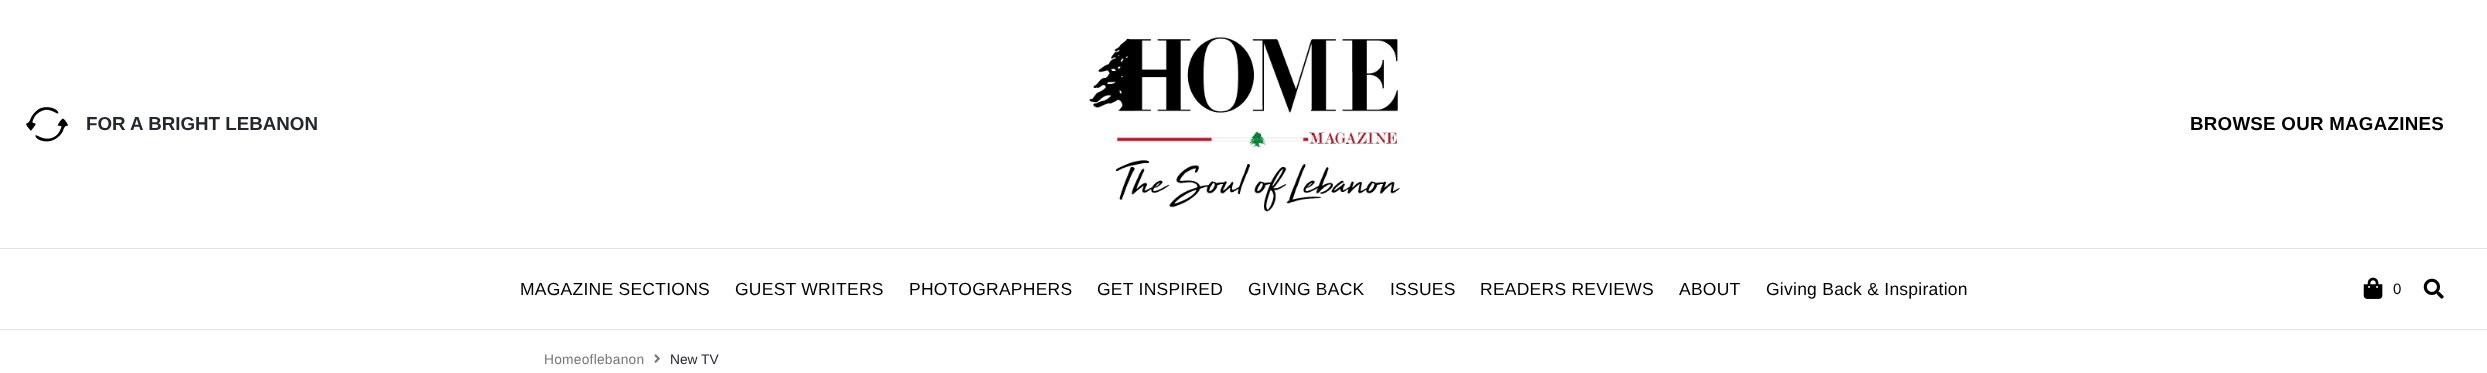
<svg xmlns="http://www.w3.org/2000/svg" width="2487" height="373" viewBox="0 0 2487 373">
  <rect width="100%" height="100%" fill="#ffffff"/>
  <image x="26" y="107" width="42" height="35" href="img1.png"/>
  <text x="86" y="130" font-family="Liberation Sans" font-size="18.75" font-weight="bold" fill="#25262e">FOR A BRIGHT LEBANON</text>
  <image x="1089" y="37" width="311" height="175" href="img2.png"/>
  <text x="2190" y="130" font-family="Liberation Sans" font-size="18.75" font-weight="bold" letter-spacing="0.25" fill="#000000">BROWSE OUR MAGAZINES</text>
  <rect x="0" y="248" width="2487" height="1" fill="#e3e3e3"/>
  <rect x="0" y="329" width="2487" height="1" fill="#e3e3e3"/>
  <text x="520" y="295" font-family="Liberation Sans" font-size="17.5" letter-spacing="0.25" fill="#000000">MAGAZINE SECTIONS</text>
  <text x="735" y="295" font-family="Liberation Sans" font-size="17.5" letter-spacing="0.25" fill="#000000">GUEST WRITERS</text>
  <text x="909" y="295" font-family="Liberation Sans" font-size="17.5" letter-spacing="0.25" fill="#000000">PHOTOGRAPHERS</text>
  <text x="1097" y="295" font-family="Liberation Sans" font-size="17.5" letter-spacing="0.25" fill="#000000">GET INSPIRED</text>
  <text x="1248" y="295" font-family="Liberation Sans" font-size="17.5" letter-spacing="0.25" fill="#000000">GIVING BACK</text>
  <text x="1390" y="295" font-family="Liberation Sans" font-size="17.5" letter-spacing="0.25" fill="#000000">ISSUES</text>
  <text x="1480" y="295" font-family="Liberation Sans" font-size="17.5" letter-spacing="0.25" fill="#000000">READERS REVIEWS</text>
  <text x="1679" y="295" font-family="Liberation Sans" font-size="17.5" letter-spacing="0.25" fill="#000000">ABOUT</text>
  <text x="1766" y="295" font-family="Liberation Sans" font-size="17.5" letter-spacing="0.25" fill="#000000">Giving Back &amp; Inspiration</text>
  <image x="2363" y="277" width="20" height="22" href="img3.png"/>
  <text x="2393" y="294" font-family="Liberation Sans" font-size="15" letter-spacing="0.25" fill="#000000">0</text>
  <image x="2423" y="278" width="21" height="21" href="img4.png"/>
  <text x="544" y="364" font-family="Liberation Sans" font-size="13.75" letter-spacing="0.25" fill="#777777">Homeoflebanon</text>
  <image x="654" y="354" width="6" height="9" href="img5.png"/>
  <text x="670" y="364" font-family="Liberation Sans" font-size="13.75" fill="#25262e">New TV</text>
</svg>
